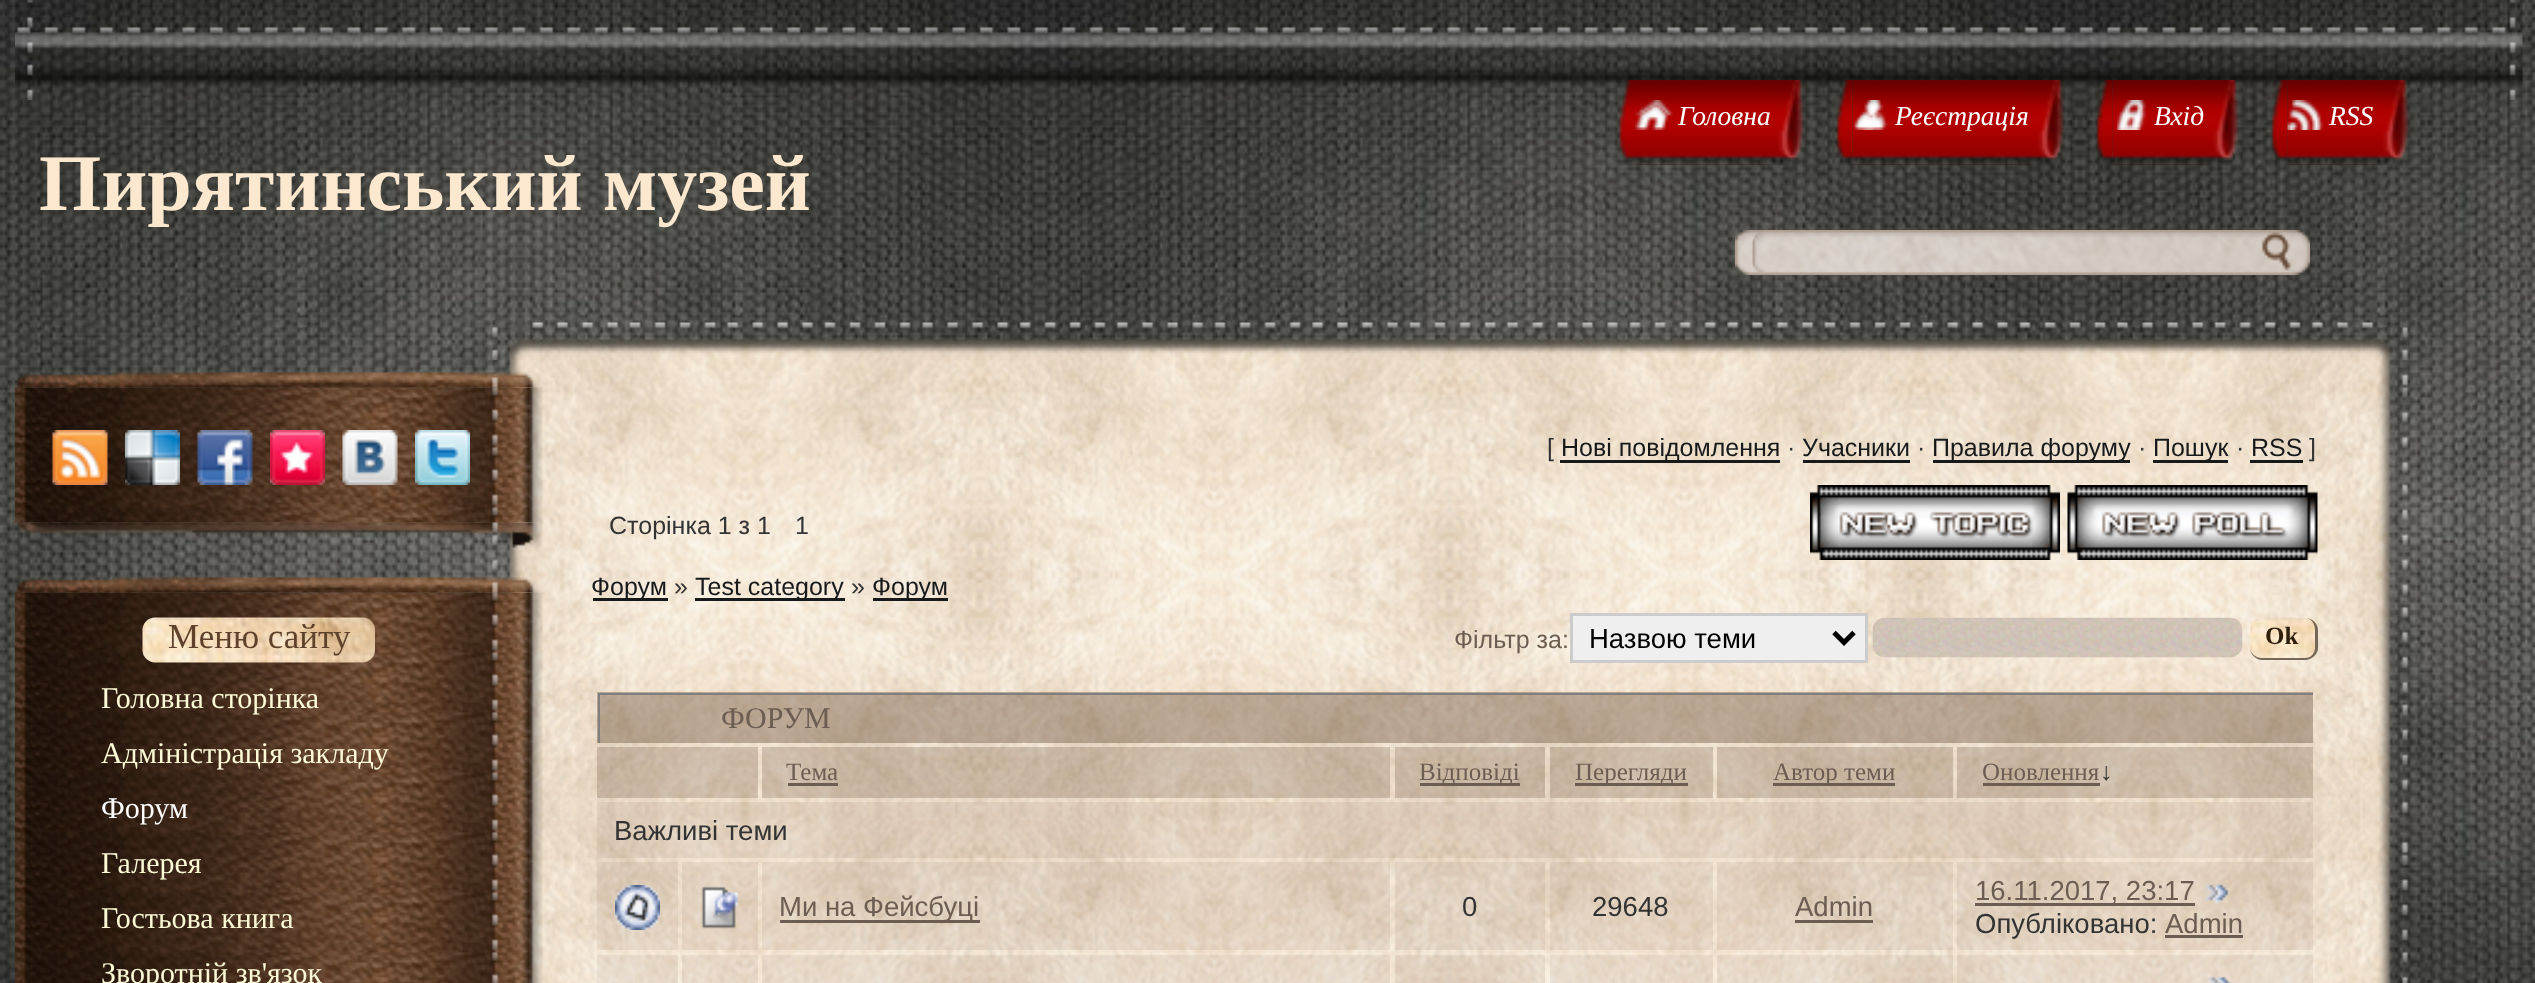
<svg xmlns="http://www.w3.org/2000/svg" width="2535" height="983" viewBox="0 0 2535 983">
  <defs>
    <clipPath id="clip1"><rect x="598" y="693" width="1715" height="50"/></clipPath>
  </defs>
  <rect width="100%" height="100%" fill="#ffffff"/>
  <image x="0" y="0" width="2535" height="983" href="img1.png"/>
  <image x="15" y="0" width="2508" height="100" href="img2.png"/>
  <image x="1618" y="80" width="17" height="85" href="img3.png"/>
  <image x="1635" y="80" width="135" height="85" href="img4.png"/>
  <image x="1635" y="100" width="38" height="30" href="img5.png"/>
  <text x="1678" y="125" font-family="Liberation Serif" font-size="27.5" font-style="italic" fill="#ffffff">Головна</text>
  <image x="1770" y="80" width="34" height="85" href="img6.png"/>
  <image x="1836" y="80" width="17" height="85" href="img7.png"/>
  <image x="1852" y="80" width="178" height="85" href="img8.png"/>
  <image x="1852" y="100" width="36" height="30" href="img9.png"/>
  <text x="1895" y="125" font-family="Liberation Serif" font-size="27.5" font-style="italic" fill="#ffffff">Реєстрація</text>
  <image x="2030" y="80" width="34" height="85" href="img10.png"/>
  <image x="2096" y="80" width="17" height="84" href="img11.png"/>
  <image x="2112" y="80" width="93" height="85" href="img12.png"/>
  <image x="2116" y="100" width="31" height="30" href="img13.png"/>
  <text x="2154" y="125" font-family="Liberation Serif" font-size="27.5" font-style="italic" fill="#ffffff">Вхід</text>
  <image x="2205" y="80" width="34" height="85" href="img14.png"/>
  <image x="2271" y="80" width="17" height="85" href="img15.png"/>
  <image x="2287" y="80" width="88" height="85" href="img16.png"/>
  <image x="2287" y="100" width="37" height="30" href="img17.png"/>
  <text x="2329" y="125" font-family="Liberation Serif" font-size="27.5" font-style="italic" fill="#ffffff">RSS</text>
  <image x="2375" y="80" width="34" height="85" href="img18.png"/>
  <text x="39" y="210" font-family="Liberation Serif" font-size="80" font-weight="bold" fill="#fbe8cf">Пирятинський музей</text>
  <image x="1735" y="230" width="556" height="45" href="img19.png"/>
  <image x="1752" y="230" width="558" height="45" href="img20.png"/>
  <image x="490" y="322" width="1920" height="38" href="img21.png"/>
  <image x="490" y="360" width="1920" height="623" href="img22.png"/>
  <image x="15" y="387" width="528" height="136" href="img24.png"/>
  <image x="15" y="372" width="527" height="16" href="img23.png"/>
  <image x="52" y="430" width="56" height="55" href="img25.png"/>
  <image x="125" y="430" width="55" height="55" href="img26.png"/>
  <image x="197" y="430" width="56" height="55" href="img27.png"/>
  <image x="270" y="430" width="55" height="55" href="img28.png"/>
  <image x="342" y="430" width="56" height="55" href="img29.png"/>
  <image x="415" y="430" width="55" height="55" href="img30.png"/>
  <image x="17" y="522" width="526" height="26" href="img31.png"/>
  <image x="15" y="592" width="528" height="391" href="img33.png"/>
  <image x="15" y="577" width="527" height="16" href="img32.png"/>
  <image x="142" y="617" width="233" height="46" href="img34.png"/>
  <text x="168" y="648" font-family="Liberation Serif" font-size="35" fill="#5f422b">Меню сайту</text>
  <text x="101" y="708" font-family="Liberation Serif" font-size="30" fill="#fcfad7">Головна сторінка</text>
  <text x="101" y="763" font-family="Liberation Serif" font-size="30" fill="#fcfad7">Адміністрація закладу</text>
  <text x="101" y="818" font-family="Liberation Serif" font-size="30" fill="#ffffff">Форум</text>
  <text x="101" y="873" font-family="Liberation Serif" font-size="30" fill="#fcfad7">Галерея</text>
  <text x="101" y="928" font-family="Liberation Serif" font-size="30" fill="#fcfad7">Гостьова книга</text>
  <text x="101" y="983" font-family="Liberation Serif" font-size="30" fill="#fcfad7">Зворотній зв'язок</text>
  <text x="1547" y="456" font-family="Liberation Sans" font-size="25" fill="#333333">[</text>
  <rect x="1560" y="460" width="220" height="3" fill="#18191b"/>
  <text x="1561" y="456" font-family="Liberation Sans" font-size="25" fill="#18191b">Нові повідомлення</text>
  <text x="1787" y="456" font-family="Liberation Sans" font-size="25" fill="#333333">·</text>
  <text x="1802" y="456" font-family="Liberation Sans" font-size="25" fill="#18191b">Учасники</text>
  <rect x="1803" y="460" width="107" height="3" fill="#18191b"/>
  <text x="1917" y="456" font-family="Liberation Sans" font-size="25" fill="#333333">·</text>
  <rect x="1933" y="460" width="197" height="3" fill="#18191b"/>
  <text x="1932" y="456" font-family="Liberation Sans" font-size="25" fill="#18191b">Правила форуму</text>
  <text x="2138" y="456" font-family="Liberation Sans" font-size="25" fill="#333333">·</text>
  <rect x="2153" y="460" width="75" height="3" fill="#18191b"/>
  <text x="2153" y="456" font-family="Liberation Sans" font-size="25" fill="#18191b">Пошук</text>
  <text x="2236" y="456" font-family="Liberation Sans" font-size="25" fill="#333333">·</text>
  <text x="2251" y="456" font-family="Liberation Sans" font-size="25" fill="#18191b">RSS</text>
  <rect x="2250" y="460" width="53" height="3" fill="#18191b"/>
  <text x="2309" y="456" font-family="Liberation Sans" font-size="25" fill="#333333">]</text>
  <text x="609" y="534" font-family="Liberation Sans" font-size="25" fill="#333333">Сторінка 1 з 1</text>
  <text x="795" y="534" font-family="Liberation Sans" font-size="25" fill="#333333">1</text>
  <image x="1810" y="485" width="250" height="75" href="img35.png"/>
  <image x="2067" y="485" width="251" height="75" href="img36.png"/>
  <rect x="593" y="598" width="75" height="3" fill="#18191b"/>
  <text x="591" y="595" font-family="Liberation Sans" font-size="25" fill="#18191b">Форум</text>
  <text x="674" y="595" font-family="Liberation Sans" font-size="25" fill="#333333">»</text>
  <rect x="695" y="598" width="150" height="3" fill="#18191b"/>
  <text x="695" y="595" font-family="Liberation Sans" font-size="25" fill="#18191b">Test category</text>
  <text x="851" y="595" font-family="Liberation Sans" font-size="25" fill="#333333">»</text>
  <rect x="873" y="598" width="75" height="3" fill="#18191b"/>
  <text x="872" y="595" font-family="Liberation Sans" font-size="25" fill="#18191b">Форум</text>
  <text x="1454" y="648" font-family="Liberation Sans" font-size="25" fill="#6c5d52">Фільтр за:</text>
  <rect x="1571.5" y="614.5" width="295" height="47" fill="#efefef" stroke="#cccccc" stroke-width="3"/>
  <path d="M1834 632.5L1844 642.5L1854 632.5" fill="none" stroke="#000000" stroke-width="5"/>
  <text x="1589" y="648" font-family="Liberation Sans" font-size="27.5" fill="#000000">Назвою теми</text>
  <image x="1872" y="617" width="371" height="41" href="img37.png"/>
  <image x="2250" y="617" width="68" height="43" href="img38.png"/>
  <path d="M2262 618H2305C2312 618 2318 623 2318 630V648C2318 654 2312 660 2305 660H2262C2256 660 2250 654 2250 648V630C2250 623 2256 618 2262 618ZM2262 618H2305C2311 618 2315 623 2315 630V648C2315 653 2311 658 2305 658H2262C2256 658 2250 653 2250 648V630C2250 623 2256 618 2262 618Z" fill="#756859" fill-rule="evenodd"/>
  <text x="2265" y="644" font-family="Liberation Serif" font-size="25" font-weight="bold" fill="#2d1f0b">Ok</text>
  <rect x="597" y="692" width="1716" height="51" fill="#614732" fill-opacity="0.38"/>
  <g clip-path="url(#clip1)">
    <path d="M350 445H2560V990H350ZM600 695H2315V745H600Z" fill="#807e7e" fill-rule="evenodd"/>
  </g>
  <text x="721" y="728" font-family="Liberation Serif" font-size="30" fill="#6c5d52">ФОРУМ</text>
  <rect x="597" y="747" width="161" height="51" fill="#604732" fill-opacity="0.24"/>
  <rect x="762" y="747" width="628" height="51" fill="#604732" fill-opacity="0.24"/>
  <text x="786" y="780" font-family="Liberation Serif" font-size="25" fill="#6c5d52">Тема</text>
  <rect x="788" y="783" width="50" height="3" fill="#6c5d52"/>
  <rect x="1395" y="747" width="150" height="51" fill="#604732" fill-opacity="0.24"/>
  <rect x="1420" y="783" width="100" height="3" fill="#6c5d52"/>
  <text x="1419" y="780" font-family="Liberation Serif" font-size="25" fill="#6c5d52">Відповіді</text>
  <rect x="1550" y="747" width="163" height="51" fill="#604732" fill-opacity="0.24"/>
  <rect x="1575" y="783" width="113" height="3" fill="#6c5d52"/>
  <text x="1575" y="780" font-family="Liberation Serif" font-size="25" fill="#6c5d52">Перегляди</text>
  <rect x="1717" y="747" width="236" height="51" fill="#604732" fill-opacity="0.24"/>
  <rect x="1773" y="783" width="122" height="3" fill="#6c5d52"/>
  <text x="1773" y="780" font-family="Liberation Serif" font-size="25" fill="#6c5d52">Автор теми</text>
  <rect x="1957" y="747" width="356" height="51" fill="#604732" fill-opacity="0.24"/>
  <text x="1982" y="780" font-family="Liberation Serif" font-size="25" fill="#6c5d52">Оновлення</text>
  <rect x="1983" y="783" width="117" height="3" fill="#6c5d52"/>
  <text x="2100" y="780" font-family="Liberation Serif" font-size="25" fill="#333333">↓</text>
  <rect x="597" y="802" width="1716" height="56" fill="#644337" fill-opacity="0.09"/>
  <text x="614" y="840" font-family="Liberation Sans" font-size="27.5" fill="#333333">Важливі теми</text>
  <rect x="597" y="862" width="81" height="88" fill="#644337" fill-opacity="0.09"/>
  <image x="615" y="885" width="45" height="45" href="img39.png"/>
  <rect x="682" y="862" width="76" height="88" fill="#644337" fill-opacity="0.09"/>
  <image x="701" y="886" width="38" height="43" href="img40.png"/>
  <rect x="762" y="862" width="628" height="88" fill="#644337" fill-opacity="0.09"/>
  <rect x="780" y="920" width="200" height="3" fill="#6c5d52"/>
  <text x="779" y="916" font-family="Liberation Sans" font-size="27.5" fill="#6c5d52">Ми на Фейсбуці</text>
  <rect x="1395" y="862" width="150" height="88" fill="#644337" fill-opacity="0.09"/>
  <text x="1462" y="916" font-family="Liberation Sans" font-size="27.5" fill="#333333">0</text>
  <rect x="1550" y="862" width="163" height="88" fill="#644337" fill-opacity="0.09"/>
  <text x="1592" y="916" font-family="Liberation Sans" font-size="27.5" fill="#333333">29648</text>
  <rect x="1717" y="862" width="236" height="88" fill="#644337" fill-opacity="0.09"/>
  <text x="1795" y="916" font-family="Liberation Sans" font-size="27.5" fill="#6c5d52">Admin</text>
  <rect x="1795" y="920" width="78" height="3" fill="#6c5d52"/>
  <rect x="1957" y="862" width="356" height="88" fill="#644337" fill-opacity="0.09"/>
  <rect x="1975" y="903" width="220" height="3" fill="#6c5d52"/>
  <text x="1975" y="900" font-family="Liberation Sans" font-size="27.5" fill="#6c5d52">16.11.2017, 23:17</text>
  <image x="2204" y="884" width="25" height="20" href="img41.png"/>
  <text x="1975" y="933" font-family="Liberation Sans" font-size="27.5" fill="#333333">Опубліковано:</text>
  <text x="2165" y="933" font-family="Liberation Sans" font-size="27.5" fill="#6c5d52">Admin</text>
  <rect x="2165" y="935" width="78" height="3" fill="#6c5d52"/>
  <rect x="597" y="955" width="81" height="28" fill="#644337" fill-opacity="0.09"/>
  <rect x="682" y="955" width="76" height="28" fill="#644337" fill-opacity="0.09"/>
  <rect x="762" y="955" width="628" height="28" fill="#644337" fill-opacity="0.09"/>
  <rect x="1395" y="955" width="150" height="28" fill="#644337" fill-opacity="0.09"/>
  <rect x="1550" y="955" width="163" height="28" fill="#644337" fill-opacity="0.09"/>
  <rect x="1717" y="955" width="236" height="28" fill="#644337" fill-opacity="0.09"/>
  <rect x="1957" y="955" width="356" height="28" fill="#644337" fill-opacity="0.09"/>
  <image x="2207" y="976" width="24" height="7" href="img42.png"/>
</svg>
